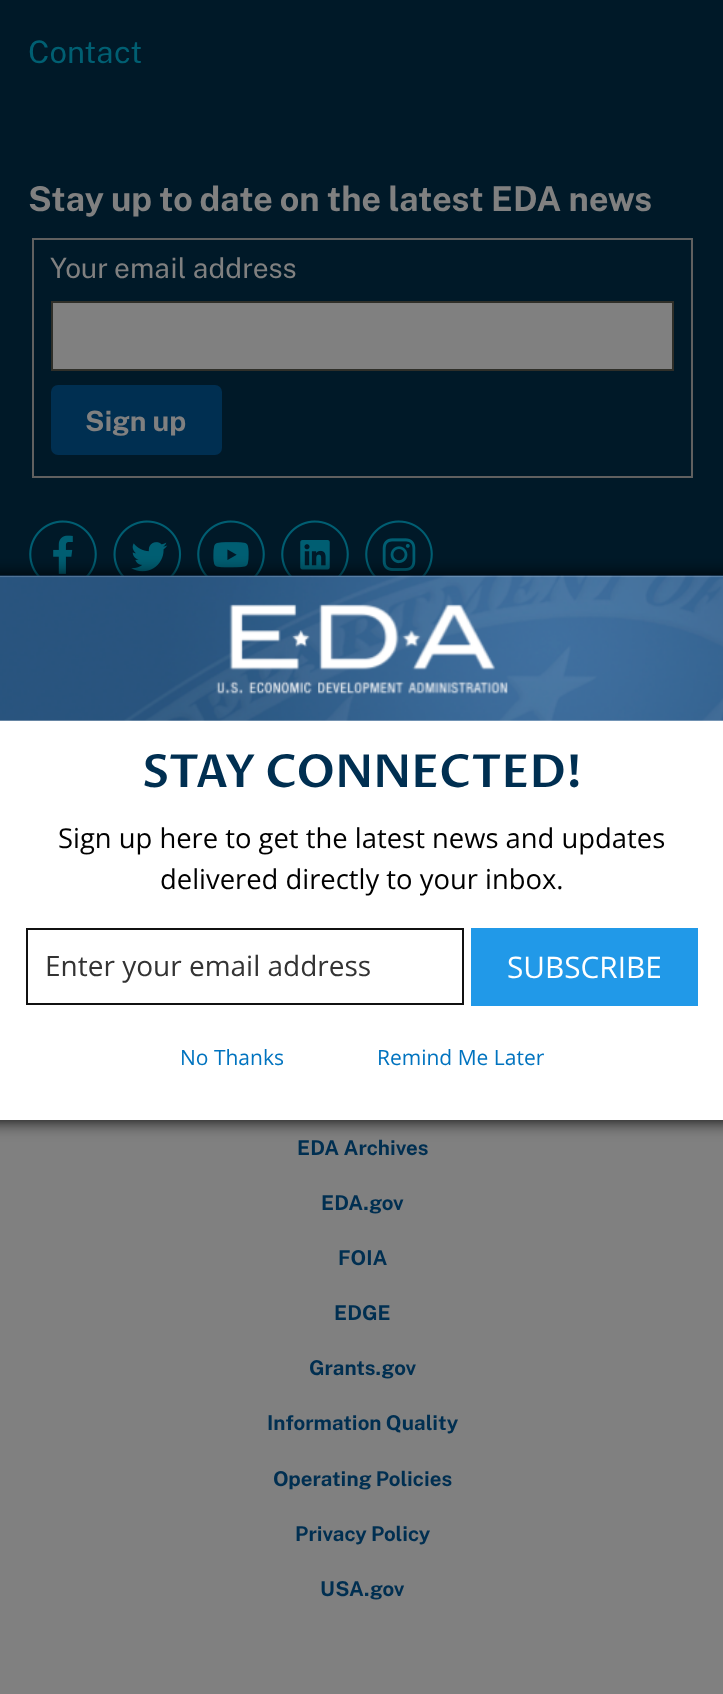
<svg xmlns="http://www.w3.org/2000/svg" width="723" height="1694" viewBox="0 0 723 1694">
  <defs>
    <filter id="blur1" x="-50%" y="-200%" width="200%" height="500%"><feGaussianBlur stdDeviation="9"/></filter>
  </defs>
  <rect width="100%" height="100%" fill="#808080"/>
  <rect x="0" y="0" width="723" height="576" fill="#001928"/>
  <text x="28" y="63" font-family="Public Sans" font-size="31" fill="#005f72">Contact</text>
  <text x="28" y="211" font-family="Public Sans" font-size="34.2" font-weight="bold" fill="#808080">Stay up to date on the latest EDA news</text>
  <rect x="33" y="239" width="659" height="238" fill="none" stroke="#606060" stroke-width="2"/>
  <text x="50" y="278" font-family="Public Sans" font-size="28" fill="#808080">Your email address</text>
  <rect x="52" y="302" width="621" height="68" fill="#808080" stroke="#2f2f29" stroke-width="2"/>
  <rect x="51" y="385" width="171" height="70" rx="7" fill="#002f51"/>
  <text x="85" y="431" font-family="Public Sans" font-size="28" font-weight="bold" fill="#808080">Sign up</text>
  <image x="29" y="520" width="68" height="56" href="img1.png"/>
  <image x="113" y="520" width="69" height="56" href="img2.png"/>
  <image x="197" y="520" width="68" height="56" href="img3.png"/>
  <image x="281" y="520" width="68" height="56" href="img4.png"/>
  <image x="365" y="520" width="68" height="56" href="img5.png"/>
  <text x="297" y="1155" font-family="Public Sans" font-size="20.5" font-weight="bold" fill="#002f51">EDA Archives</text>
  <text x="321" y="1210" font-family="Public Sans" font-size="20.5" font-weight="bold" fill="#002f51">EDA.gov</text>
  <text x="338" y="1265" font-family="Public Sans" font-size="20.5" font-weight="bold" fill="#002f51">FOIA</text>
  <text x="334" y="1320" font-family="Public Sans" font-size="20.5" font-weight="bold" fill="#002f51">EDGE</text>
  <text x="309" y="1375" font-family="Public Sans" font-size="20.5" font-weight="bold" fill="#002f51">Grants.gov</text>
  <text x="267" y="1430" font-family="Public Sans" font-size="20.5" font-weight="bold" fill="#002f51">Information Quality</text>
  <text x="273" y="1486" font-family="Public Sans" font-size="20.5" font-weight="bold" fill="#002f51">Operating Policies</text>
  <text x="295" y="1541" font-family="Public Sans" font-size="20.5" font-weight="bold" fill="#002f51">Privacy Policy</text>
  <text x="320" y="1596" font-family="Public Sans" font-size="20.5" font-weight="bold" fill="#002f51">USA.gov</text>
  <rect x="-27" y="576" width="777" height="544" fill="#000000" filter="url(#blur1)"/>
  <rect x="0" y="576" width="723" height="544" fill="#ffffff"/>
  <image x="0" y="575" width="723" height="146" href="img6.png"/>
  <text x="142" y="787" font-family="Proza Libre" font-size="45.5" font-weight="600" fill="#002f51">STAY CONNECTED!</text>
  <text x="58" y="848" font-family="Open Sans" font-size="27.4" fill="#000000">Sign up here to get the latest news and updates</text>
  <text x="160" y="889" font-family="Open Sans" font-size="27.4" fill="#000000">delivered directly to your inbox.</text>
  <rect x="27" y="929" width="436" height="75" fill="none" stroke="#111111" stroke-width="2"/>
  <text x="45" y="976" font-family="Open Sans" font-size="28" fill="#333333">Enter your email address</text>
  <rect x="471" y="928" width="227" height="78" fill="#2199e8"/>
  <text x="507" y="978" font-family="Open Sans" font-size="29.75" fill="#ffffff">SUBSCRIBE</text>
  <text x="180" y="1065" font-family="Open Sans" font-size="21" fill="#0073bf">No Thanks</text>
  <text x="377" y="1065" font-family="Open Sans" font-size="21" fill="#0073bf">Remind Me Later</text>
</svg>
